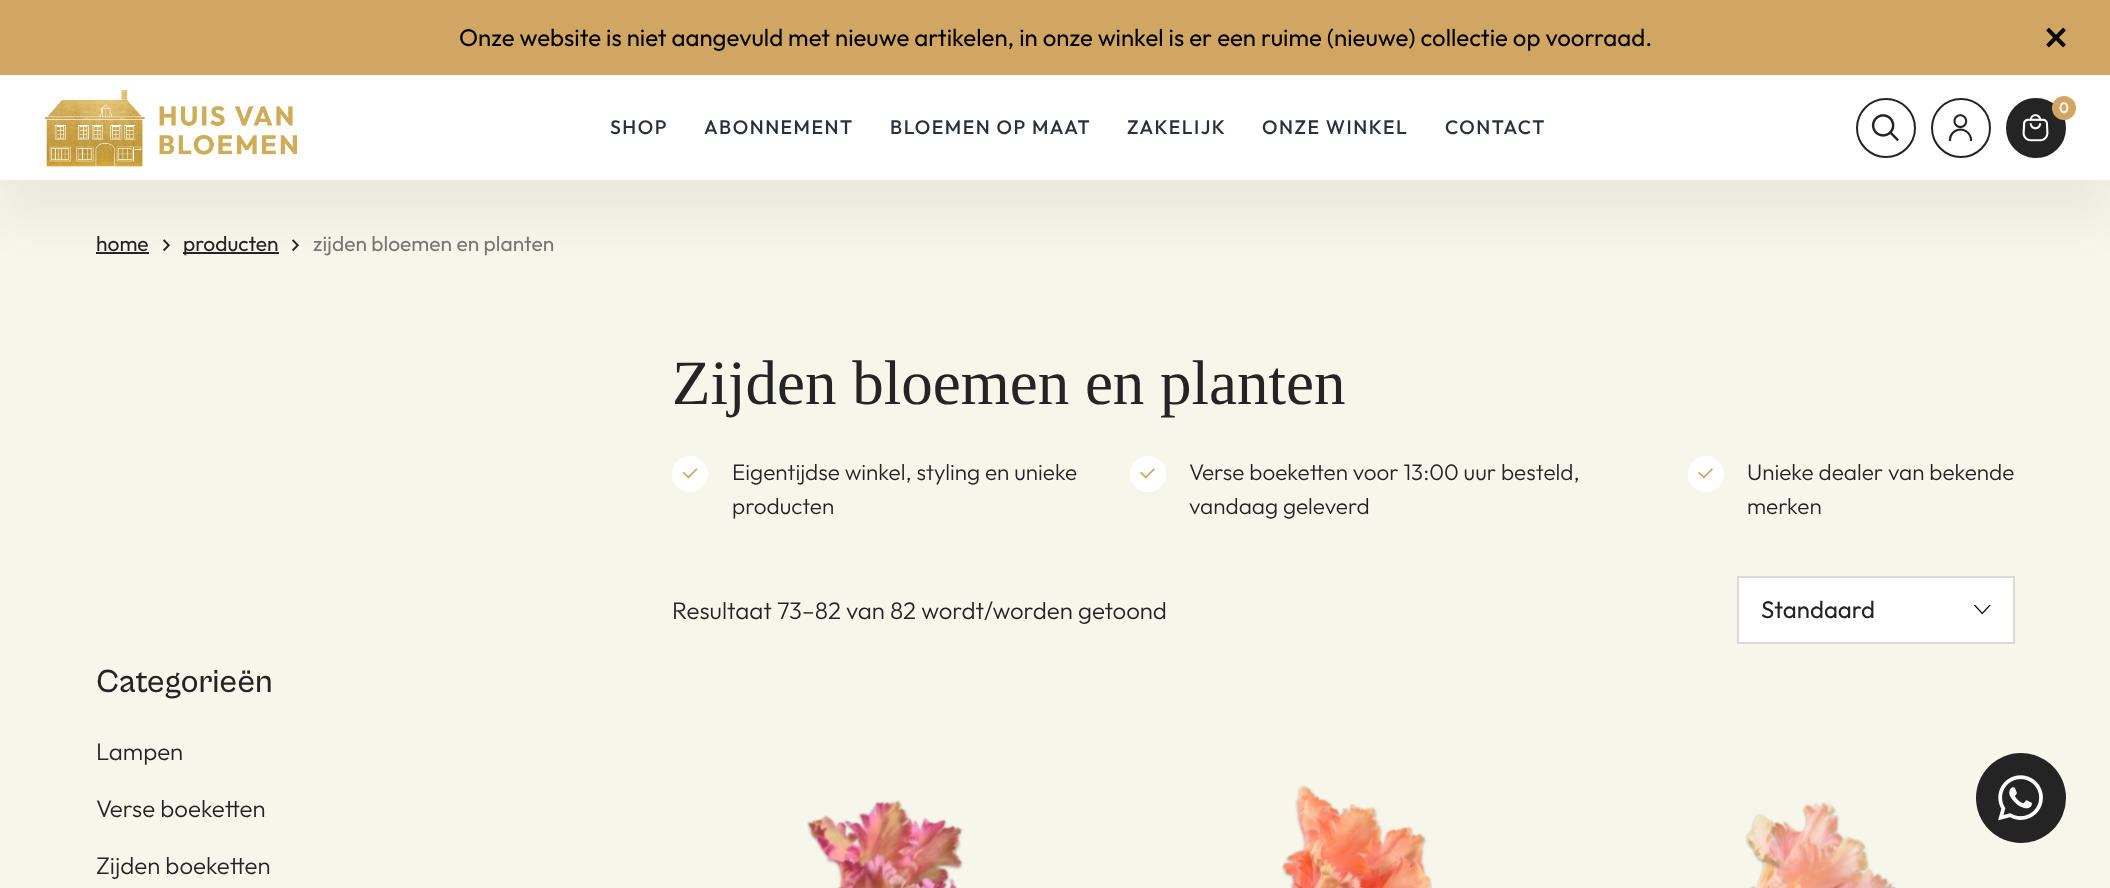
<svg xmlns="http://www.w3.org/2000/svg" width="2110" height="888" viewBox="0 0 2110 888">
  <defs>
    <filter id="blur1" x="-50%" y="-200%" width="200%" height="500%"><feGaussianBlur stdDeviation="22.5"/></filter>
  </defs>
  <rect width="100%" height="100%" fill="#f7f6ea"/>
  <rect x="96" y="252" width="53" height="2" fill="#242424"/>
  <image x="163" y="239" width="7" height="13" href="img6.png"/>
  <rect x="183" y="252" width="96" height="2" fill="#242424"/>
  <image x="292" y="239" width="7" height="13" href="img6.png"/>
  <rect x="0" y="-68" width="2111" height="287" fill="#000000" fill-opacity="0.05" filter="url(#blur1)"/>
  <rect x="0" y="0" width="2110" height="75" fill="#d1a663"/>
  <text x="459" y="46" font-family="Outfit" font-size="24" fill="#000000">Onze website is niet aangevuld met nieuwe artikelen, in onze winkel is er een ruime (nieuwe) collectie op voorraad.</text>
  <image x="2046" y="27" width="20" height="21" href="img1.png"/>
  <rect x="0" y="75" width="2110" height="105" fill="#ffffff"/>
  <image x="45" y="90" width="252" height="77" href="img2.png"/>
  <circle cx="1886" cy="128" r="29" fill="none" stroke="#242424" stroke-width="2"/>
  <image x="1871" y="114" width="28" height="28" href="img3.png"/>
  <circle cx="1961" cy="128" r="29" fill="none" stroke="#242424" stroke-width="2"/>
  <image x="1948" y="114" width="25" height="28" href="img4.png"/>
  <circle cx="2036" cy="128" r="29" fill="#242424" stroke="#242424" stroke-width="2"/>
  <circle cx="2064" cy="108" r="12" fill="#d1a663"/>
  <text x="2059" y="113" font-family="Outfit" font-size="15" font-weight="500" fill="#ffffff">0</text>
  <image x="2022" y="114" width="27" height="28" href="img5.png"/>
  <text x="610" y="134" font-family="Outfit" font-size="19.5" font-weight="500" letter-spacing="1.5" fill="#2a303f">SHOP</text>
  <text x="704" y="134" font-family="Outfit" font-size="19.5" font-weight="500" letter-spacing="1.5" fill="#2a303f">ABONNEMENT</text>
  <text x="890" y="134" font-family="Outfit" font-size="19.5" font-weight="500" letter-spacing="1.5" fill="#2a303f">BLOEMEN OP MAAT</text>
  <text x="1127" y="134" font-family="Outfit" font-size="19.5" font-weight="500" letter-spacing="1.5" fill="#2a303f">ZAKELIJK</text>
  <text x="1262" y="134" font-family="Outfit" font-size="19.5" font-weight="500" letter-spacing="1.5" fill="#2a303f">ONZE WINKEL</text>
  <text x="1445" y="134" font-family="Outfit" font-size="19.5" font-weight="500" letter-spacing="1.5" fill="#2a303f">CONTACT</text>
  <text x="96" y="251" font-family="Outfit" font-size="21" fill="#242424">home</text>
  <text x="183" y="251" font-family="Outfit" font-size="21" fill="#242424">producten</text>
  <text x="313" y="251" font-family="Outfit" font-size="21" fill="#787873">zijden bloemen en planten</text>
  <text x="672" y="404" font-family="Liberation Serif" font-size="63" fill="#242424">Zijden bloemen en planten</text>
  <circle cx="690" cy="474" r="18" fill="#ffffff"/>
  <image x="682" y="468" width="16" height="11" href="img7.png"/>
  <text x="732" y="480" font-family="Outfit" font-size="22.5" font-weight="300" fill="#242424">Eigentijdse winkel, styling en unieke</text>
  <text x="732" y="514" font-family="Outfit" font-size="22.5" font-weight="300" fill="#242424">producten</text>
  <circle cx="1148" cy="474" r="18" fill="#ffffff"/>
  <image x="1140" y="468" width="15" height="11" href="img8.png"/>
  <text x="1189" y="480" font-family="Outfit" font-size="22.5" font-weight="300" fill="#242424">Verse boeketten voor 13:00 uur besteld,</text>
  <text x="1189" y="514" font-family="Outfit" font-size="22.5" font-weight="300" fill="#242424">vandaag geleverd</text>
  <circle cx="1706" cy="474" r="18" fill="#ffffff"/>
  <image x="1698" y="468" width="15" height="11" href="img8.png"/>
  <text x="1747" y="480" font-family="Outfit" font-size="22.5" font-weight="300" fill="#242424">Unieke dealer van bekende</text>
  <text x="1747" y="514" font-family="Outfit" font-size="22.5" font-weight="300" fill="#242424">merken</text>
  <text x="672" y="619" font-family="Outfit" font-size="24" font-weight="300" fill="#242424">Resultaat 73–82 van 82 wordt/worden getoond</text>
  <rect x="1739" y="578" width="274" height="64" fill="#ffffff"/>
  <image x="1974" y="605" width="17" height="10" href="img9.png"/>
  <rect x="1738" y="577" width="276" height="66" fill="none" stroke="#d9d9d9" stroke-width="2"/>
  <text x="1761" y="618" font-family="Outfit" font-size="24" fill="#242424">Standaard</text>
  <image x="806" y="800" width="157" height="88" href="img10.png"/>
  <image x="1281" y="785" width="151" height="103" href="img11.png"/>
  <image x="1745" y="802" width="152" height="86" href="img12.png"/>
  <text x="96" y="692" font-family="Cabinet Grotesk" font-size="33" font-weight="500" fill="#242424">Categorieën</text>
  <text x="96" y="760" font-family="Outfit" font-size="24" font-weight="300" fill="#242424">Lampen</text>
  <text x="96" y="817" font-family="Outfit" font-size="24" font-weight="300" fill="#242424">Verse boeketten</text>
  <text x="96" y="874" font-family="Outfit" font-size="24" font-weight="300" fill="#242424">Zijden boeketten</text>
  <circle cx="2021" cy="798" r="45" fill="#242424"/>
  <image x="1998" y="775" width="45" height="46" href="img13.png"/>
</svg>
